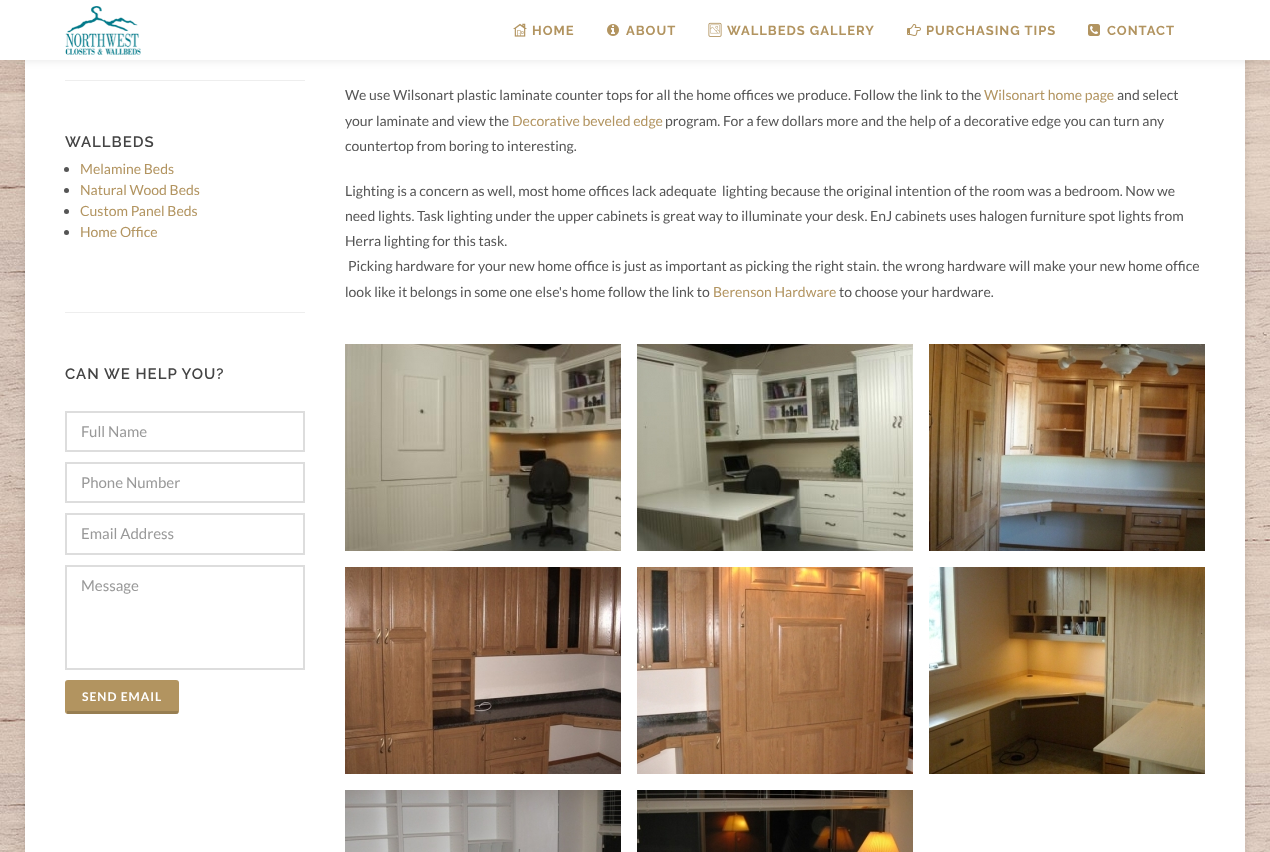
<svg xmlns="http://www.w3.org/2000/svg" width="1270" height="852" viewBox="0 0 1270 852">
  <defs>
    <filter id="blur1" x="-50%" y="-200%" width="200%" height="500%"><feGaussianBlur stdDeviation="5"/></filter>
  </defs>
  <rect width="100%" height="100%" fill="#ffffff"/>
  <image x="0" y="60" width="1270" height="792" href="img1.png"/>
  <rect x="25" y="-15" width="1220" height="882" fill="#000000" fill-opacity="0.1" filter="url(#blur1)"/>
  <rect x="25" y="60" width="1220" height="792" fill="#ffffff"/>
  <rect x="0" y="0" width="1270" height="60" fill="#000000" fill-opacity="0.1" filter="url(#blur1)"/>
  <rect x="0" y="0" width="1270" height="60" fill="#ffffff"/>
  <image x="65" y="6" width="76" height="49" href="img2.png"/>
  <image x="513" y="23" width="14" height="14" href="img3.png"/>
  <text x="532" y="35" font-family="Raleway" font-size="13" font-weight="bold" letter-spacing="1" fill="#b29460">HOME</text>
  <image x="607" y="24" width="12" height="12" href="img4.png"/>
  <text x="626" y="35" font-family="Raleway" font-size="13" font-weight="bold" letter-spacing="1" fill="#b29460">ABOUT</text>
  <image x="708" y="22" width="14" height="15" href="img5.png"/>
  <text x="727" y="35" font-family="Raleway" font-size="13" font-weight="bold" letter-spacing="1" fill="#b29460">WALLBEDS GALLERY</text>
  <image x="907" y="24" width="14" height="12" href="img6.png"/>
  <text x="926" y="35" font-family="Raleway" font-size="13" font-weight="bold" letter-spacing="1" fill="#b29460">PURCHASING TIPS</text>
  <image x="1088" y="24" width="12" height="12" href="img7.png"/>
  <text x="1107" y="35" font-family="Raleway" font-size="13" font-weight="bold" letter-spacing="1" fill="#b29460">CONTACT</text>
  <rect x="65" y="80" width="240" height="1" fill="#eeeeee"/>
  <text x="65" y="147" font-family="Raleway" font-size="15" font-weight="600" letter-spacing="1" fill="#444444">WALLBEDS</text>
  <circle cx="66.5" cy="169.5" r="2.5" fill="#555555"/>
  <text x="80" y="174" font-family="Lato" font-size="14" fill="#b29460">Melamine Beds</text>
  <circle cx="66.5" cy="190.5" r="2.5" fill="#555555"/>
  <text x="80" y="195" font-family="Lato" font-size="14" fill="#b29460">Natural Wood Beds</text>
  <circle cx="66.5" cy="211.5" r="2.5" fill="#555555"/>
  <text x="80" y="216" font-family="Lato" font-size="14" fill="#b29460">Custom Panel Beds</text>
  <circle cx="66.5" cy="232.5" r="2.5" fill="#555555"/>
  <text x="80" y="237" font-family="Lato" font-size="14" fill="#b29460">Home Office</text>
  <rect x="65" y="312" width="240" height="1" fill="#eeeeee"/>
  <text x="65" y="379" font-family="Raleway" font-size="15" font-weight="600" letter-spacing="1" fill="#444444">CAN WE HELP YOU?</text>
  <rect x="66" y="412" width="238" height="39" fill="none" stroke="#dddddd" stroke-width="2"/>
  <text x="81" y="437" font-family="Lato" font-size="15" fill="#999999">Full Name</text>
  <rect x="66" y="463" width="238" height="39" fill="none" stroke="#dddddd" stroke-width="2"/>
  <text x="81" y="488" font-family="Lato" font-size="15" fill="#999999">Phone Number</text>
  <rect x="66" y="514" width="238" height="40" fill="none" stroke="#dddddd" stroke-width="2"/>
  <text x="81" y="539" font-family="Lato" font-size="15" fill="#999999">Email Address</text>
  <rect x="66" y="566" width="238" height="103" fill="none" stroke="#dddddd" stroke-width="2"/>
  <text x="81" y="591" font-family="Lato" font-size="15" fill="#999999">Message</text>
  <rect x="65" y="680" width="114" height="34" rx="3" fill="#b29460"/>
  <rect x="67" y="711" width="111" height="3" fill="#000000" fill-opacity="0.15"/>
  <text x="82" y="701" font-family="Lato" font-size="12" font-weight="bold" letter-spacing="1" fill="#ffffff">SEND EMAIL</text>
  <text x="345" y="100" font-family="Lato" font-size="14" fill="#555555">We use Wilsonart plastic laminate counter tops for all the home offices we produce. Follow the link to the</text>
  <text x="984" y="100" font-family="Lato" font-size="14" fill="#b29460">Wilsonart home page</text>
  <text x="1117" y="100" font-family="Lato" font-size="14" fill="#555555">and select</text>
  <text x="345" y="126" font-family="Lato" font-size="14" fill="#555555">your laminate and view the</text>
  <text x="512" y="126" font-family="Lato" font-size="14" fill="#b29460">Decorative beveled edge</text>
  <text x="665" y="126" font-family="Lato" font-size="14" fill="#555555">program. For a few dollars more and the help of a decorative edge you can turn any</text>
  <text x="345" y="151" font-family="Lato" font-size="14" fill="#555555">countertop from boring to interesting.</text>
  <text x="345" y="196" font-family="Lato" font-size="14" fill="#555555" xml:space="preserve">Lighting is a concern as well, most home offices lack adequate  lighting because the original intention of the room was a bedroom. Now we</text>
  <text x="345" y="221" font-family="Lato" font-size="14" fill="#555555">need lights. Task lighting under the upper cabinets is great way to illuminate your desk. EnJ cabinets uses halogen furniture spot lights from</text>
  <text x="345" y="246" font-family="Lato" font-size="14" fill="#555555">Herra lighting for this task.</text>
  <text x="348" y="271" font-family="Lato" font-size="14" fill="#555555">Picking hardware for your new home office is just as important as picking the right stain. the wrong hardware will make your new home office</text>
  <text x="345" y="297" font-family="Lato" font-size="14" fill="#555555">look like it belongs in some one else's home follow the link to</text>
  <text x="713" y="297" font-family="Lato" font-size="14" fill="#b29460">Berenson Hardware</text>
  <text x="839" y="297" font-family="Lato" font-size="14" fill="#555555">to choose your hardware.</text>
  <image x="345" y="344" width="276" height="207" href="img8.png"/>
  <image x="637" y="344" width="276" height="207" href="img9.png"/>
  <image x="929" y="344" width="276" height="207" href="img10.png"/>
  <image x="345" y="567" width="276" height="207" href="img11.png"/>
  <image x="637" y="567" width="276" height="207" href="img12.png"/>
  <image x="929" y="567" width="276" height="207" href="img13.png"/>
  <image x="345" y="790" width="276" height="62" href="img14.png"/>
  <image x="637" y="790" width="276" height="62" href="img15.png"/>
</svg>
